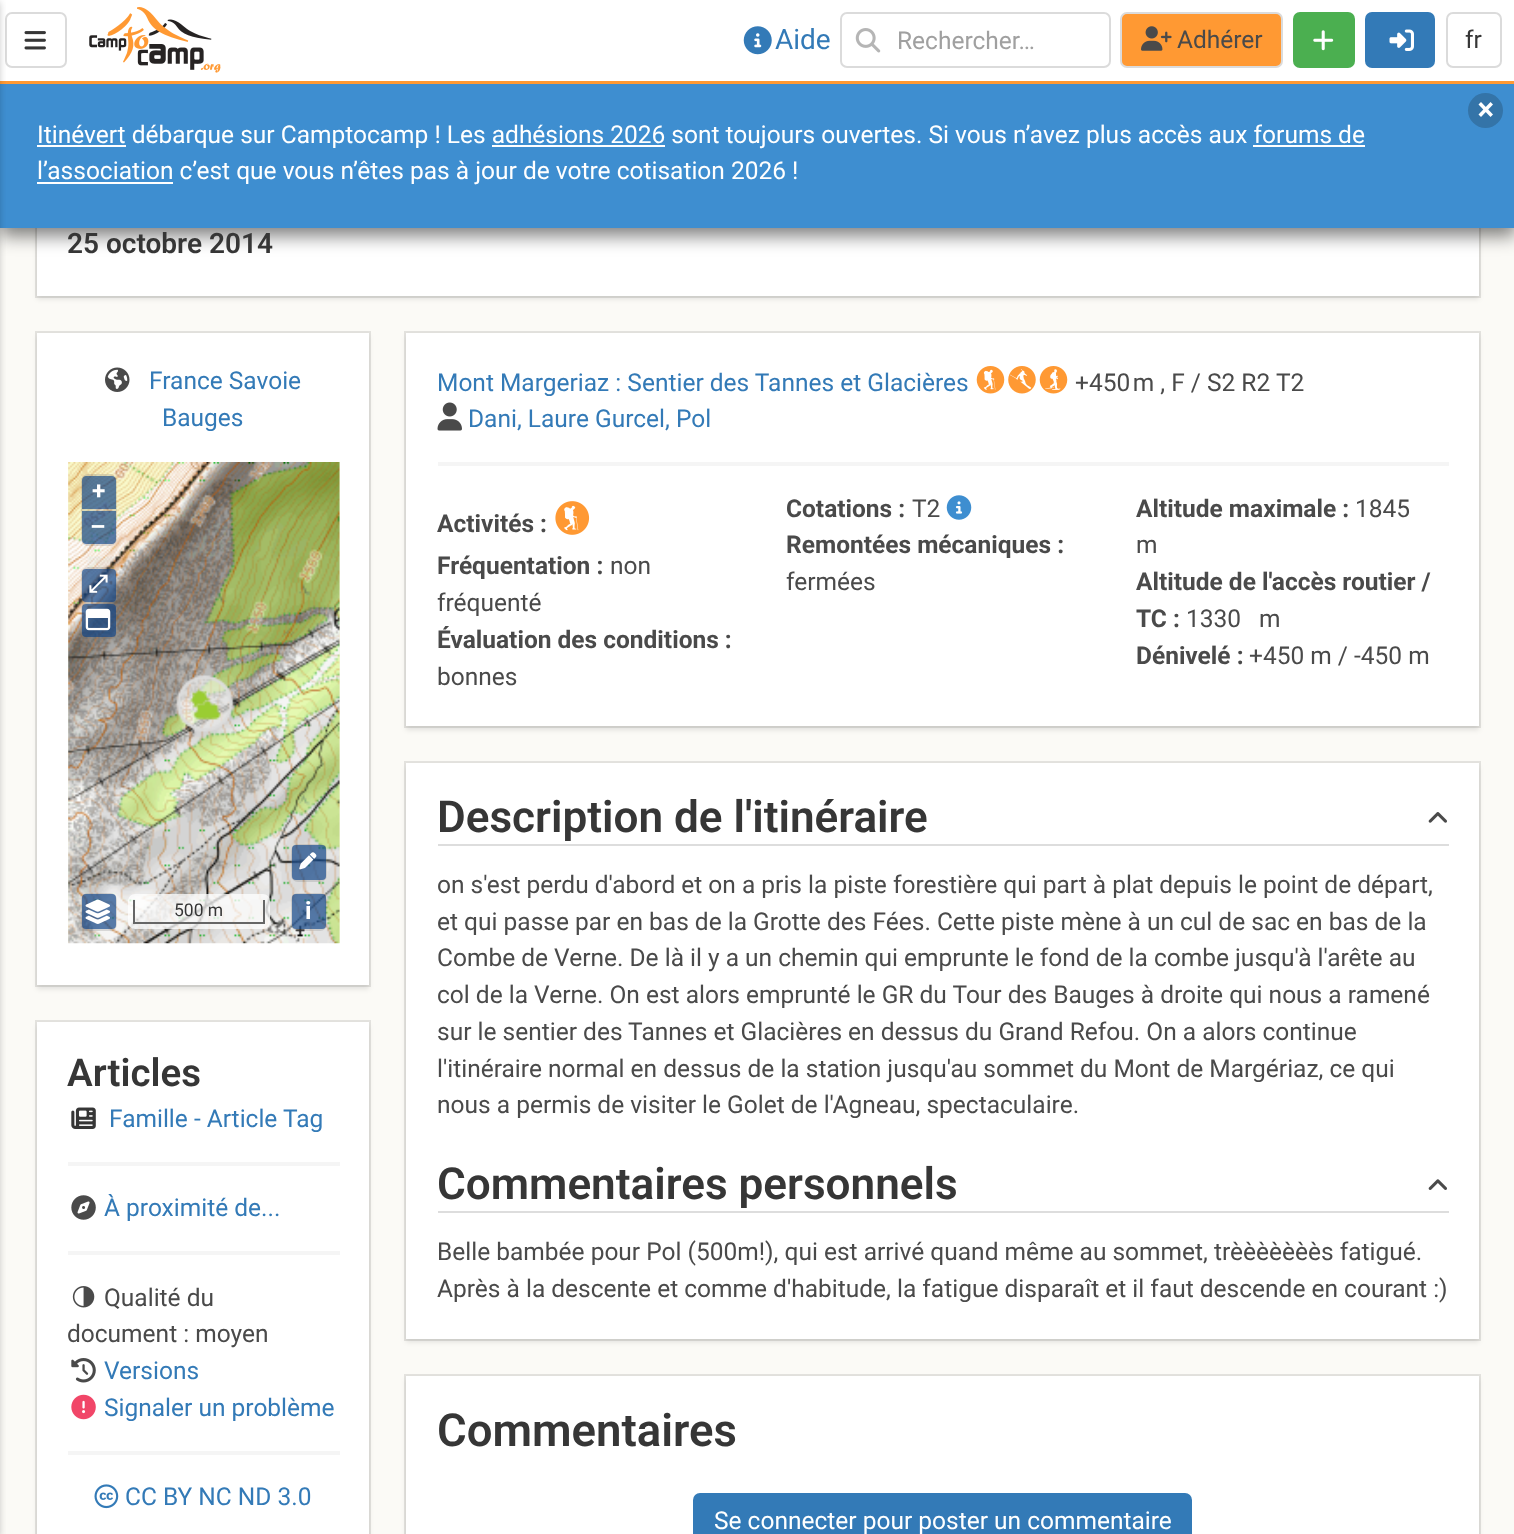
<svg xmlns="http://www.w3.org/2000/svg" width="1514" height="1534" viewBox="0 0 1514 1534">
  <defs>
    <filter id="blur1" x="-50%" y="-200%" width="200%" height="500%"><feGaussianBlur stdDeviation="2.5"/></filter>
    <filter id="blur2" x="-50%" y="-200%" width="200%" height="500%"><feGaussianBlur stdDeviation="9"/></filter>
    <filter id="blur3" x="-50%" y="-200%" width="200%" height="500%"><feGaussianBlur stdDeviation="3.5"/></filter>
  </defs>
  <rect width="100%" height="100%" fill="#fbfaf6"/>
  <rect x="36" y="117" width="1444" height="180" fill="none" stroke="#e3e2de" stroke-width="2"/>
  <rect x="37" y="121" width="1442" height="178" fill="#0a0a0a" fill-opacity="0.1" filter="url(#blur1)"/>
  <rect x="37" y="228" width="1442" height="68" fill="#ffffff"/>
  <rect x="0" y="89" width="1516" height="147" fill="#0a0a0a" fill-opacity="0.5" filter="url(#blur2)"/>
  <path d="M0 80V84H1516V4V80Z" fill="#ff9933"/>
  <rect x="0" y="0" width="1514" height="81" fill="#ffffff"/>
  <rect x="6" y="13" width="60" height="54" rx="6" fill="none" stroke="#dbdbdb" stroke-width="2"/>
  <rect x="0" y="84" width="1514" height="144" fill="#3e8ed0"/>
  <rect x="-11" y="2" width="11" height="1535" fill="#000000" fill-opacity="0.2" filter="url(#blur3)"/>
  <image x="24" y="31" width="22" height="19" href="img1.png"/>
  <image x="89" y="7" width="132" height="66" href="img2.png"/>
  <image x="743" y="26" width="29" height="29" href="img3.png"/>
  <text x="775" y="49" font-family="Roboto" font-size="28" fill="#337ab7">Aide</text>
  <rect x="841" y="13" width="269" height="54" rx="6" fill="none" stroke="#dbdbdb" stroke-width="2"/>
  <image x="855" y="28" width="26" height="25" href="img4.png"/>
  <text x="897" y="49" font-family="Roboto" font-size="24.5" fill="#a0a0a0">Rechercher…</text>
  <rect x="1121" y="13" width="161" height="54" rx="6" fill="#ff9933" stroke="#dbdbdb" stroke-width="2"/>
  <image x="1141" y="26" width="31" height="25" href="img5.png"/>
  <text x="1177" y="48" font-family="Roboto" font-size="24.5" fill="#4a4a4a">Adhérer</text>
  <rect x="1293" y="12" width="62" height="56" rx="7" fill="#4baf50"/>
  <image x="1313" y="30" width="21" height="21" href="img6.png"/>
  <rect x="1365" y="12" width="70" height="56" rx="7" fill="#337ab7"/>
  <image x="1389" y="29" width="25" height="22" href="img7.png"/>
  <rect x="1447" y="13" width="54" height="54" rx="6" fill="none" stroke="#dbdbdb" stroke-width="2"/>
  <text x="1465" y="48" font-family="Roboto" font-size="24.5" fill="#363636">fr</text>
  <circle cx="1485.5" cy="110.5" r="17.5" fill="#3474a8"/>
  <path d="M1481 102L1493 114.5L1490.5 117L1478.5 104.5Z" fill="#ffffff"/>
  <path d="M1490.5 102L1493 104.5L1481 117L1478.5 114.5Z" fill="#ffffff"/>
  <rect x="37" y="145" width="89" height="2" fill="#ffffff"/>
  <text x="37" y="143" font-family="Roboto" font-size="24.5" fill="#ffffff">Itinévert débarque sur Camptocamp ! Les adhésions 2026 sont toujours ouvertes. Si vous n’avez plus accès aux forums de</text>
  <rect x="492" y="145" width="173" height="2" fill="#ffffff"/>
  <rect x="37" y="182" width="136" height="2" fill="#ffffff"/>
  <text x="37" y="179" font-family="Roboto" font-size="24.5" fill="#ffffff">l’association c’est que vous n’êtes pas à jour de votre cotisation 2026 !</text>
  <rect x="1253" y="145" width="112" height="2" fill="#ffffff"/>
  <text x="67" y="253" font-family="Roboto" font-size="28" font-weight="600" fill="#363636">25 octobre 2014</text>
  <rect x="36" y="332" width="334" height="654" fill="none" stroke="#e3e2de" stroke-width="2"/>
  <rect x="37" y="336" width="332" height="653" fill="#0a0a0a" fill-opacity="0.1" filter="url(#blur1)"/>
  <rect x="37" y="333" width="332" height="652" fill="#ffffff"/>
  <image x="105" y="367" width="25" height="25" href="img8.png"/>
  <text x="149" y="389" font-family="Roboto" font-size="24.5" fill="#337ab7">France Savoie</text>
  <text x="162" y="426" font-family="Roboto" font-size="24.5" fill="#337ab7">Bauges</text>
  <rect x="68" y="462" width="272" height="481" fill="#f5f5dc"/>
  <image x="68" y="462" width="272" height="482" href="img9.png"/>
  <rect x="81" y="474" width="36" height="72" rx="7" fill="#808080" fill-opacity="0.25"/>
  <path d="M86 476H112C114 476 116 478 116 480V509H82V480C82 478 84 476 86 476Z" fill="#003c88" fill-opacity="0.6"/>
  <text x="92" y="499" font-family="Roboto" font-size="24.5" font-weight="bold" fill="#ffffff">+</text>
  <path d="M82 511H116V540C116 542 114 544 112 544H86C84 544 82 542 82 540Z" fill="#003c88" fill-opacity="0.6"/>
  <text x="90" y="535" font-family="Roboto" font-size="24.5" font-weight="bold" fill="#ffffff">–</text>
  <rect x="81" y="567" width="36" height="37" rx="7" fill="#808080" fill-opacity="0.25"/>
  <rect x="82" y="569" width="34" height="33" rx="4" fill="#003c88" fill-opacity="0.6"/>
  <text x="88" y="592" font-family="FreeSerif" font-size="24.5" font-weight="bold" fill="#ffffff">⤢</text>
  <rect x="81" y="602" width="36" height="37" rx="7" fill="#808080" fill-opacity="0.25"/>
  <rect x="82" y="604" width="34" height="33" rx="4" fill="#003c88" fill-opacity="0.6"/>
  <image x="85" y="608" width="26" height="23" href="img10.png"/>
  <rect x="291" y="844" width="36" height="38" rx="7" fill="#808080" fill-opacity="0.25"/>
  <rect x="292" y="845" width="34" height="35" rx="4" fill="#003c88" fill-opacity="0.6"/>
  <image x="299" y="852" width="18" height="18" href="img11.png"/>
  <rect x="81" y="893" width="36" height="38" rx="7" fill="#808080" fill-opacity="0.25"/>
  <rect x="82" y="894" width="34" height="35" rx="4" fill="#003c88" fill-opacity="0.6"/>
  <image x="85" y="899" width="25" height="25" href="img12.png"/>
  <rect x="128" y="894" width="142" height="35" rx="7" fill="#ffffff" fill-opacity="0.75"/>
  <rect x="263" y="900" width="2" height="24" fill="#666666"/>
  <rect x="133" y="922" width="131" height="2" fill="#666666"/>
  <rect x="133" y="900" width="2" height="24" fill="#666666"/>
  <text x="174" y="916" font-family="Roboto" font-size="17.5" fill="#363636">500 m</text>
  <rect x="291" y="893" width="36" height="38" rx="7" fill="#808080" fill-opacity="0.25"/>
  <rect x="292" y="894" width="34" height="35" rx="4" fill="#003c88" fill-opacity="0.6"/>
  <text x="305" y="919" font-family="Roboto" font-size="24.5" font-weight="bold" fill="#ffffff">i</text>
  <rect x="36" y="1021" width="334" height="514" fill="none" stroke="#e3e2de" stroke-width="2"/>
  <rect x="37" y="1026" width="332" height="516" fill="#0a0a0a" fill-opacity="0.1" filter="url(#blur1)"/>
  <rect x="37" y="1022" width="332" height="512" fill="#ffffff"/>
  <text x="67" y="1086" font-family="Roboto" font-size="38.5" font-weight="600" fill="#363636">Articles</text>
  <image x="71" y="1107" width="25" height="22" href="img13.png"/>
  <text x="109" y="1127" font-family="Roboto" font-size="24.5" fill="#337ab7">Famille - Article Tag</text>
  <rect x="68" y="1162" width="272" height="4" fill="#f5f5f5"/>
  <image x="71" y="1195" width="25" height="25" href="img14.png"/>
  <text x="104" y="1216" font-family="Roboto" font-size="24.5" fill="#337ab7">À proximité de...</text>
  <rect x="68" y="1251" width="272" height="4" fill="#f5f5f5"/>
  <image x="72" y="1286" width="23" height="22" href="img15.png"/>
  <text x="104" y="1306" font-family="Roboto" font-size="24.5" fill="#4a4a4a">Qualité du</text>
  <text x="67" y="1342" font-family="Roboto" font-size="24.5" fill="#4a4a4a">document : moyen</text>
  <image x="71" y="1358" width="25" height="25" href="img16.png"/>
  <text x="104" y="1379" font-family="Roboto" font-size="24.5" fill="#337ab7">Versions</text>
  <image x="71" y="1394" width="25" height="26" href="img17.png"/>
  <text x="104" y="1416" font-family="Roboto" font-size="24.5" fill="#337ab7">Signaler un problème</text>
  <rect x="68" y="1451" width="272" height="4" fill="#f5f5f5"/>
  <image x="94" y="1484" width="25" height="25" href="img18.png"/>
  <text x="125" y="1505" font-family="Roboto" font-size="24.5" fill="#337ab7">CC BY NC ND 3.0</text>
  <rect x="405" y="332" width="1075" height="395" fill="none" stroke="#e3e2de" stroke-width="2"/>
  <rect x="406" y="336" width="1073" height="394" fill="#0a0a0a" fill-opacity="0.1" filter="url(#blur1)"/>
  <rect x="406" y="333" width="1073" height="393" fill="#ffffff"/>
  <text x="437" y="391" font-family="Roboto" font-size="24.5" fill="#337ab7">Mont Margeriaz : Sentier des Tannes et Glacières</text>
  <image x="976" y="366" width="29" height="28" href="img19.png"/>
  <image x="1008" y="366" width="28" height="28" href="img20.png"/>
  <image x="1039" y="366" width="29" height="28" href="img21.png"/>
  <text x="1075" y="391" font-family="Roboto" font-size="24.5" fill="#4a4a4a">+450 m , F / S2 R2</text>
  <text x="1276" y="391" font-family="Roboto" font-size="24.5" fill="#4a4a4a">T2</text>
  <image x="437" y="402" width="25" height="29" href="img22.png"/>
  <text x="468" y="427" font-family="Roboto" font-size="24.5" fill="#337ab7">Dani, Laure Gurcel, Pol</text>
  <rect x="438" y="462" width="1011" height="4" fill="#f5f5f5"/>
  <text x="437" y="532" font-family="Roboto" font-size="24.5" font-weight="bold" fill="#4a4a4a">Activités :</text>
  <image x="555" y="501" width="35" height="34" href="img23.png"/>
  <text x="437" y="574" font-family="Roboto" font-size="24.5" font-weight="bold" fill="#4a4a4a">Fréquentation :</text>
  <text x="610" y="574" font-family="Roboto" font-size="24.5" fill="#4a4a4a">non</text>
  <text x="437" y="611" font-family="Roboto" font-size="24.5" fill="#4a4a4a">fréquenté</text>
  <text x="437" y="648" font-family="Roboto" font-size="24.5" font-weight="bold" fill="#4a4a4a">Évaluation des conditions :</text>
  <text x="437" y="685" font-family="Roboto" font-size="24.5" fill="#4a4a4a">bonnes</text>
  <text x="786" y="517" font-family="Roboto" font-size="24.5" font-weight="bold" fill="#4a4a4a">Cotations :</text>
  <text x="912" y="517" font-family="Roboto" font-size="24.5" fill="#4a4a4a">T2</text>
  <image x="946" y="495" width="26" height="25" href="img24.png"/>
  <text x="786" y="553" font-family="Roboto" font-size="24.5" font-weight="bold" fill="#4a4a4a">Remontées mécaniques :</text>
  <text x="786" y="590" font-family="Roboto" font-size="24.5" fill="#4a4a4a">fermées</text>
  <text x="1136" y="517" font-family="Roboto" font-size="24.5" font-weight="bold" fill="#4a4a4a">Altitude maximale :</text>
  <text x="1355" y="517" font-family="Roboto" font-size="24.5" fill="#4a4a4a">1845</text>
  <text x="1136" y="553" font-family="Roboto" font-size="24.5" fill="#4a4a4a">m</text>
  <text x="1136" y="590" font-family="Roboto" font-size="24.5" font-weight="bold" fill="#4a4a4a">Altitude de l'accès routier /</text>
  <text x="1136" y="627" font-family="Roboto" font-size="24.5" font-weight="bold" fill="#4a4a4a">TC :</text>
  <text x="1186" y="627" font-family="Roboto" font-size="24.5" fill="#4a4a4a">1330</text>
  <text x="1259" y="627" font-family="Roboto" font-size="24.5" fill="#4a4a4a">m</text>
  <text x="1136" y="664" font-family="Roboto" font-size="24.5" font-weight="bold" fill="#4a4a4a">Dénivelé :</text>
  <text x="1249" y="664" font-family="Roboto" font-size="24.5" fill="#4a4a4a">+450 m / -450 m</text>
  <rect x="405" y="762" width="1075" height="578" fill="none" stroke="#e3e2de" stroke-width="2"/>
  <rect x="406" y="767" width="1073" height="575" fill="#0a0a0a" fill-opacity="0.1" filter="url(#blur1)"/>
  <rect x="406" y="763" width="1073" height="576" fill="#ffffff"/>
  <rect x="438" y="844" width="1011" height="2" fill="#dddddd"/>
  <text x="437" y="832" font-family="Roboto" font-size="44.1" font-weight="600" fill="#363636">Description de l'itinéraire</text>
  <image x="1428" y="812" width="19" height="11" href="img25.png"/>
  <text x="437" y="893" font-family="Roboto" font-size="24.5" fill="#4a4a4a">on s'est perdu d'abord et on a pris la piste forestière qui part à plat depuis le point de départ,</text>
  <text x="437" y="930" font-family="Roboto" font-size="24.5" fill="#4a4a4a">et qui passe par en bas de la Grotte des Fées. Cette piste mène à un cul de sac en bas de la</text>
  <text x="437" y="966" font-family="Roboto" font-size="24.5" fill="#4a4a4a">Combe de Verne. De là il y a un chemin qui emprunte le fond de la combe jusqu'à l'arête au</text>
  <text x="437" y="1003" font-family="Roboto" font-size="24.5" fill="#4a4a4a">col de la Verne. On est alors emprunté le GR du Tour des Bauges à droite qui nous a ramené</text>
  <text x="437" y="1040" font-family="Roboto" font-size="24.5" fill="#4a4a4a">sur le sentier des Tannes et Glacières en dessus du Grand Refou. On a alors continue</text>
  <text x="437" y="1077" font-family="Roboto" font-size="24.5" fill="#4a4a4a">l'itinéraire normal en dessus de la station jusqu'au sommet du Mont de Margériaz, ce qui</text>
  <text x="437" y="1113" font-family="Roboto" font-size="24.5" fill="#4a4a4a">nous a permis de visiter le Golet de l'Agneau, spectaculaire.</text>
  <rect x="438" y="1211" width="1011" height="2" fill="#dddddd"/>
  <text x="437" y="1199" font-family="Roboto" font-size="44.1" font-weight="600" fill="#363636">Commentaires personnels</text>
  <image x="1428" y="1179" width="19" height="11" href="img26.png"/>
  <text x="437" y="1260" font-family="Roboto" font-size="24.5" fill="#4a4a4a">Belle bambée pour Pol (500m!), qui est arrivé quand même au sommet, trèèèèèèès fatigué.</text>
  <text x="437" y="1297" font-family="Roboto" font-size="24.5" fill="#4a4a4a">Après à la descente et comme d'habitude, la fatigue disparaît et il faut descende en courant :)</text>
  <rect x="405" y="1375" width="1075" height="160" fill="none" stroke="#e3e2de" stroke-width="2"/>
  <rect x="406" y="1379" width="1073" height="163" fill="#0a0a0a" fill-opacity="0.1" filter="url(#blur1)"/>
  <rect x="406" y="1376" width="1073" height="158" fill="#ffffff"/>
  <text x="437" y="1446" font-family="Roboto" font-size="45.5" font-weight="600" fill="#363636">Commentaires</text>
  <rect x="693" y="1493" width="499" height="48" rx="7" fill="#337ab7"/>
  <text x="714" y="1529" font-family="Roboto" font-size="24.5" fill="#ffffff">Se connecter pour poster un commentaire</text>
</svg>
